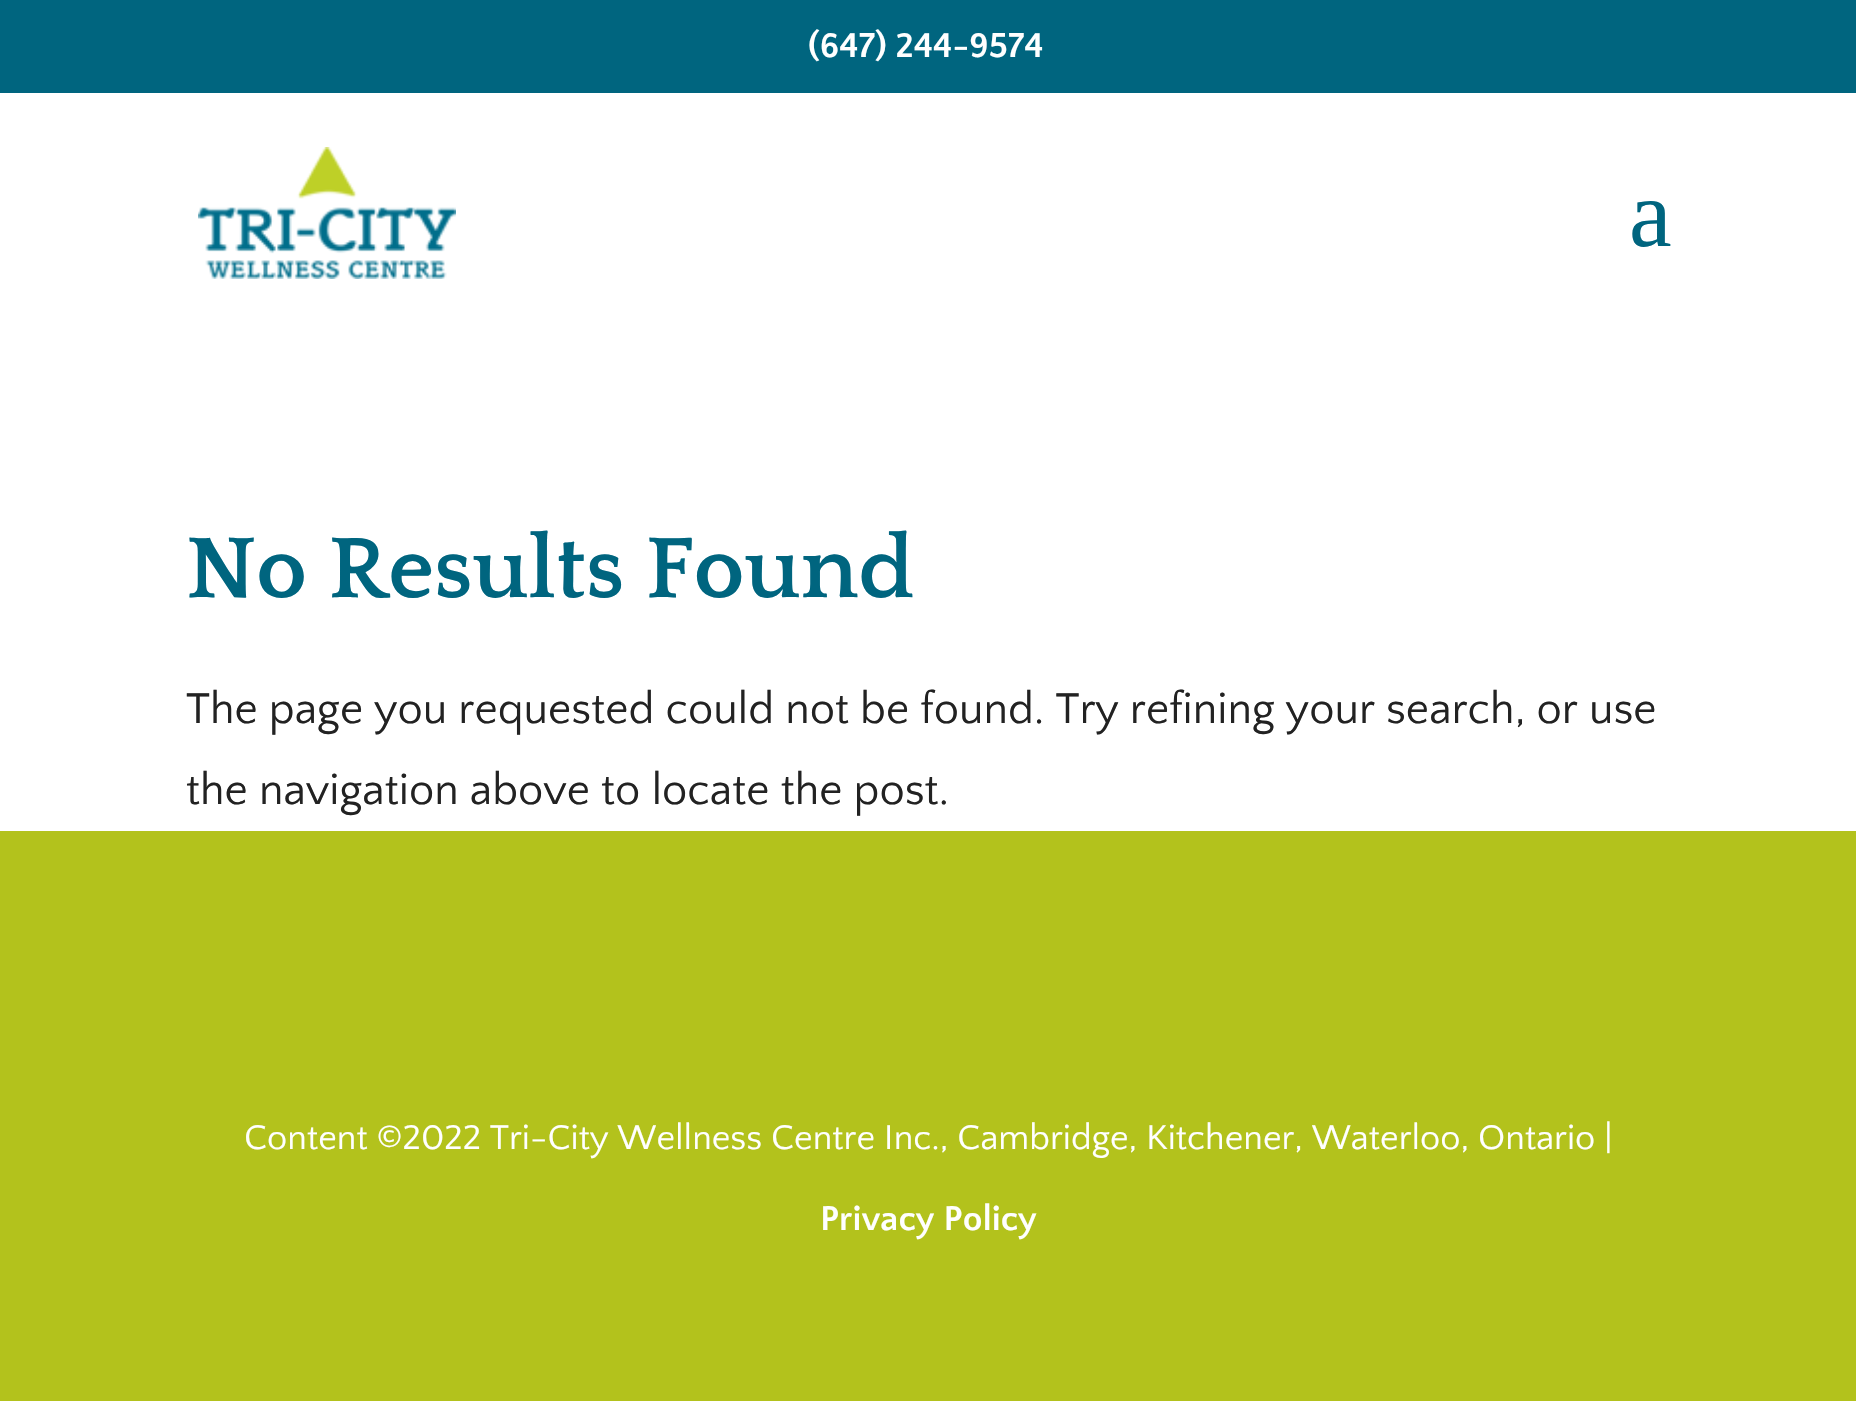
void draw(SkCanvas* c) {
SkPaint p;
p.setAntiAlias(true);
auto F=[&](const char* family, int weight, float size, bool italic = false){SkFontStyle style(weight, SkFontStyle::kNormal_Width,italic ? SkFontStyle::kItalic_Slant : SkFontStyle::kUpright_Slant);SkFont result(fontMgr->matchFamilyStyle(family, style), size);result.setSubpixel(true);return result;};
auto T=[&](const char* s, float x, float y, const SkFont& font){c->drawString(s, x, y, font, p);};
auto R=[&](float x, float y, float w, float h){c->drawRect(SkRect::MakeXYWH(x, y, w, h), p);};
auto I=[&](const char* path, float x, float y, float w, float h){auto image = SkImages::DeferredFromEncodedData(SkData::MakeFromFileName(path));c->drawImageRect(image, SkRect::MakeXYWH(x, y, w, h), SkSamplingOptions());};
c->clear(0xffb3c21c);
p.setColor(0xff00657f);
R(0,0,1856,93);
auto f1 = F("Quattrocento Sans",700,36);
p.setColor(0xffffffff);
T("(647) 244-9574",808,57,f1);
R(0,93,1856,738);
I("1.png",198,147,258,132);
auto f2 = F("Liberation Serif",400,96);
p.setColor(0xff00657f);
T("a",1629,246,f2);
auto f3 = F("Quattrocento",700,90);
T("No Results Found",186,597,f3);
auto f4 = F("Quattrocento Sans",400,45);
p.setColor(0xff222222);
T("The page you requested could not be found. Try refining your search, or use",186,723,f4);
T("the navigation above to locate the post.",186,804,f4);
auto f5 = F("Quattrocento Sans",400,36);
p.setColor(0xffffffff);
T("Content ©2022 Tri-City Wellness Centre Inc., Cambridge, Kitchener, Waterloo, Ontario |",244,1149,f5);
T("Privacy Policy",820,1230,f1);
}
